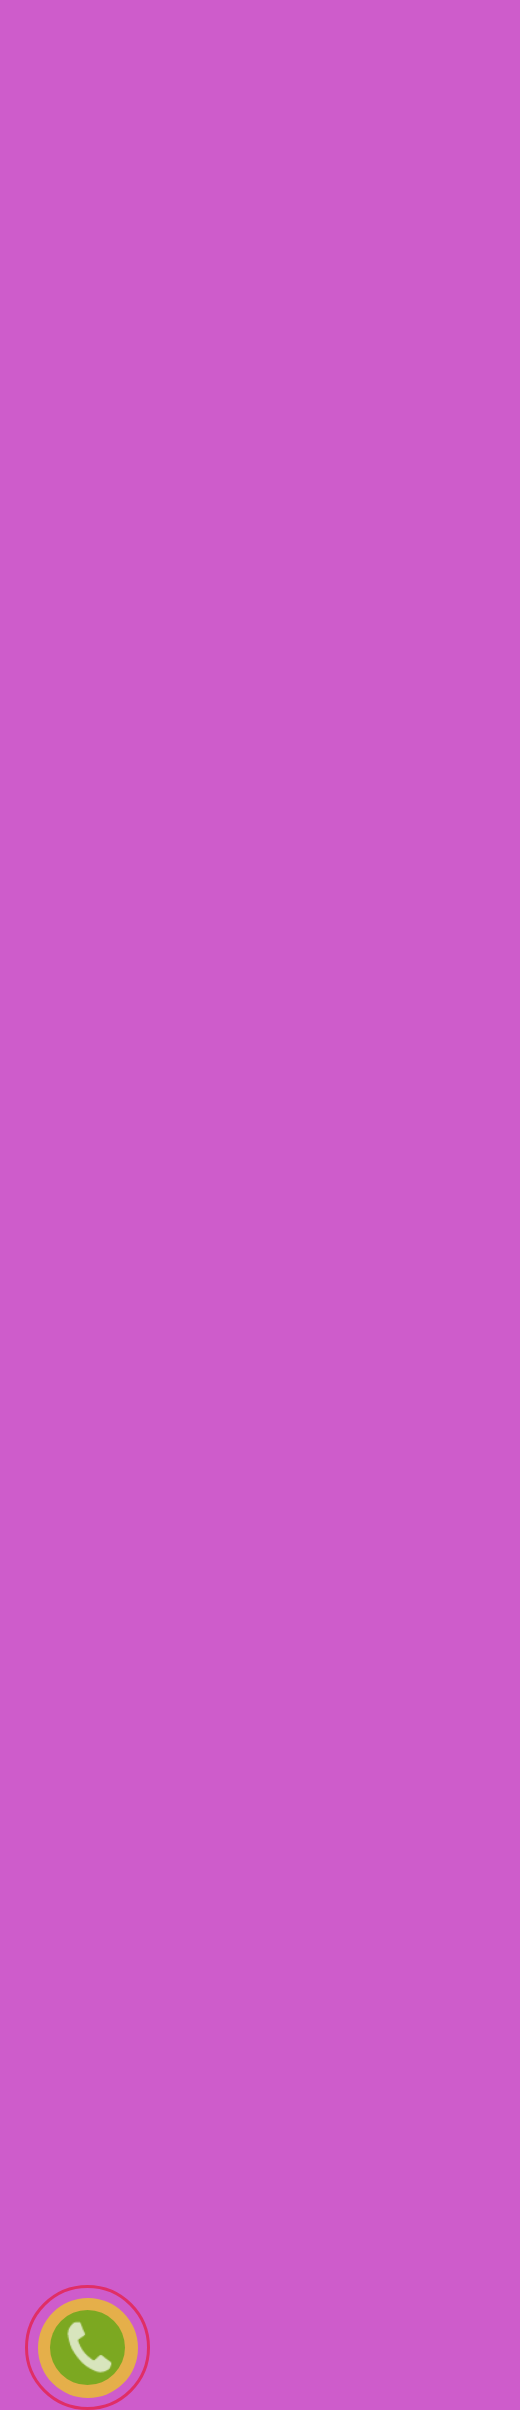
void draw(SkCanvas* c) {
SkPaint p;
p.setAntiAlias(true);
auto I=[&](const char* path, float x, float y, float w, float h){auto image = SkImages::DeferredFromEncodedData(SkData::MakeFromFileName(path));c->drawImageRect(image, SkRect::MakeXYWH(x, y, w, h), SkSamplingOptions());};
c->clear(0xffce5ccb);
p.setStroke(true);
p.setStrokeWidth(3);
p.setColor(0xffe02e66);
c->drawCircle(87.5,2347.5,61,p);
p.setStroke(false);
p.setColor(0xffe5af4a);
c->drawCircle(88,2348,50,p);
p.setColor(0xff7ca821);
c->drawCircle(87.5,2347.5,37.5,p);
I("1.png",67,2321,45,52);
}
